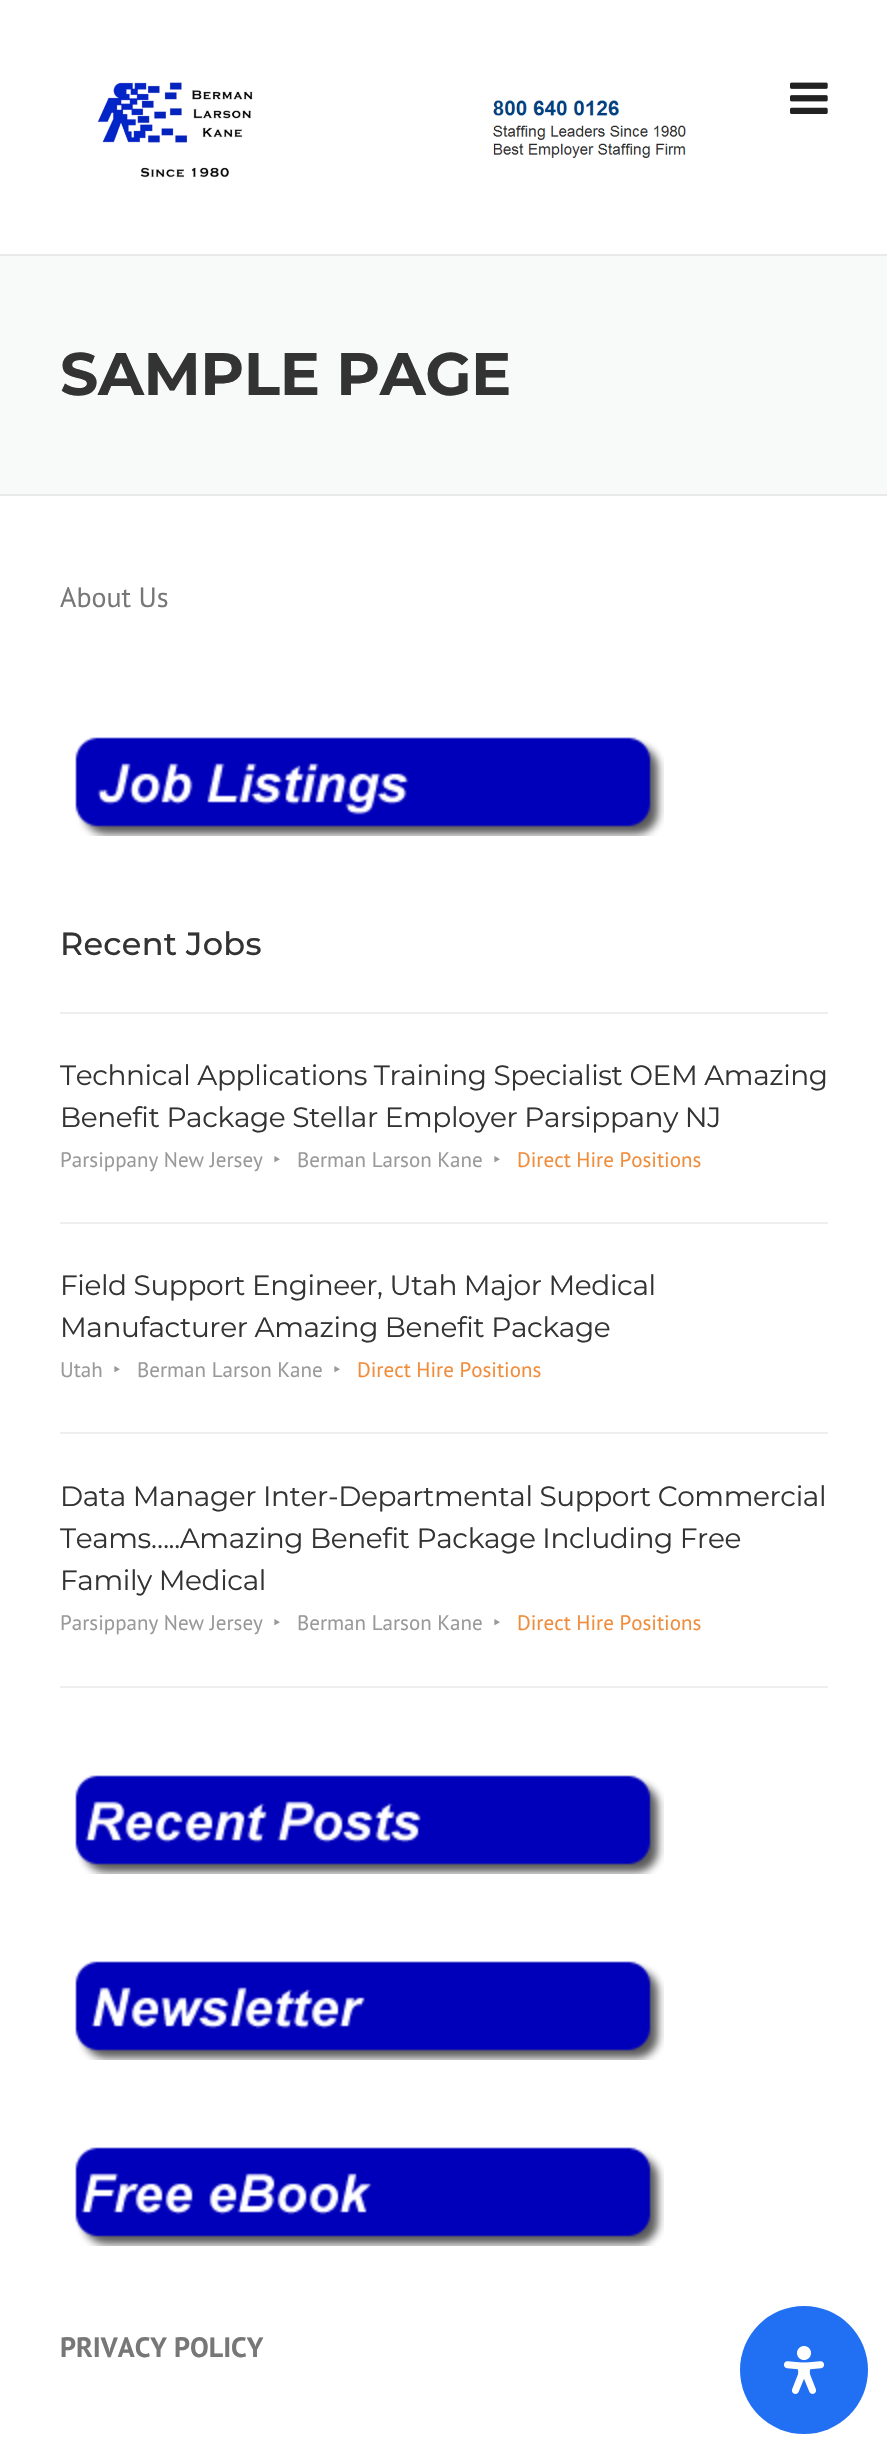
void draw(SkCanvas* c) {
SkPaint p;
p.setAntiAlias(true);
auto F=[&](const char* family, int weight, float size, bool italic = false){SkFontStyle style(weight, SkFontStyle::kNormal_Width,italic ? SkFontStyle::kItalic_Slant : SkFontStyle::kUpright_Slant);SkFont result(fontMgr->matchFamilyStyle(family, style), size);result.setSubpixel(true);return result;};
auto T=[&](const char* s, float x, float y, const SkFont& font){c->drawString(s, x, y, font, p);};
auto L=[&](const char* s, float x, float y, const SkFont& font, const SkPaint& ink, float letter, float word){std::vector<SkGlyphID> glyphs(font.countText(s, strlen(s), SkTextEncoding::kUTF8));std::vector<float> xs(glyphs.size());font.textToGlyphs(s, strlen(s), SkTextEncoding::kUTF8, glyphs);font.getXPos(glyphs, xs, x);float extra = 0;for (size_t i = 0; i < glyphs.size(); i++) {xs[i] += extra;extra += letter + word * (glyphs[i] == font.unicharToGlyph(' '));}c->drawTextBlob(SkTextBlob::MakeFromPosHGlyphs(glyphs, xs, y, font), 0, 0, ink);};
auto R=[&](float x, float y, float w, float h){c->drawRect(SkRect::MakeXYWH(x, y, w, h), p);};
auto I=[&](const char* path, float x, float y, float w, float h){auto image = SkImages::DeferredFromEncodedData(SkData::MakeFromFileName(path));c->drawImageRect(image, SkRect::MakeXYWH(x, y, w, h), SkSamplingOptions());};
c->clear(0xffffffff);
I("1.png",97,82,589,96);
I("2.png",790,82,38,32);
p.setColor(0xfff8f9f9);
R(0,256,887,238);
p.setColor(0xffe9e9e9);
R(0,254,887,2);
R(0,494,887,2);
auto f1 = F("Montserrat",700,60);
p.setColor(0xff333333);
L("SAMPLE PAGE",60,395,f1,p,-.4,0);
auto f2 = F("PT Sans",400,28);
p.setColor(0xff777777);
T("About Us",60,607,f2);
I("3.png",75,737,589,99);
auto f3 = F("Montserrat",500,32);
p.setColor(0xff333333);
L("Recent Jobs",60,955,f3,p,.25,0);
p.setColor(0xffeeeeee);
R(60,1012,768,2);
R(60,1222,768,2);
auto f4 = F("Montserrat",400,28);
p.setColor(0xff333333);
L("Technical Applications Training Specialist OEM Amazing",60,1085,f4,p,-.4,0);
L("Benefit Package Stellar Employer Parsippany NJ",60,1127,f4,p,-.4,0);
auto f5 = F("PT Sans",400,21);
p.setColor(0xff999999);
T("Parsippany New Jersey",60,1167,f5);
auto f6 = F("Noto Sans",400,21);
T("‣",273,1167,f6);
T("Berman Larson Kane",297,1167,f5);
T("‣",493,1167,f6);
p.setColor(0xfff08d3c);
T("Direct Hire Positions",517,1167,f5);
p.setColor(0xffeeeeee);
R(60,1432,768,2);
p.setColor(0xff333333);
L("Field Support Engineer, Utah Major Medical",60,1295,f4,p,-.4,0);
L("Manufacturer Amazing Benefit Package",60,1337,f4,p,-.4,0);
p.setColor(0xff999999);
T("Utah",60,1377,f5);
T("‣",113,1377,f6);
T("Berman Larson Kane",137,1377,f5);
T("‣",333,1377,f6);
p.setColor(0xfff08d3c);
T("Direct Hire Positions",357,1377,f5);
p.setColor(0xffeeeeee);
R(60,1686,768,2);
p.setColor(0xff333333);
L("Data Manager Inter-Departmental Support Commercial",60,1506,f4,p,-.4,0);
L("Teams…..Amazing Benefit Package Including Free",60,1548,f4,p,-.4,0);
L("Family Medical",60,1590,f4,p,-.4,0);
p.setColor(0xff999999);
T("Parsippany New Jersey",60,1630,f5);
T("‣",273,1630,f6);
T("Berman Larson Kane",297,1630,f5);
T("‣",493,1630,f6);
p.setColor(0xfff08d3c);
T("Direct Hire Positions",517,1630,f5);
I("4.png",75,1775,589,99);
I("5.png",75,1961,589,99);
I("6.png",75,2147,589,99);
auto f7 = F("PT Sans",700,28);
p.setColor(0xff777777);
T("PRIVACY POLICY",60,2357,f7);
p.setColor(0xff216ff3);
c->drawCircle(804,2370,64,p);
I("7.png",783,2346,42,48);
}
